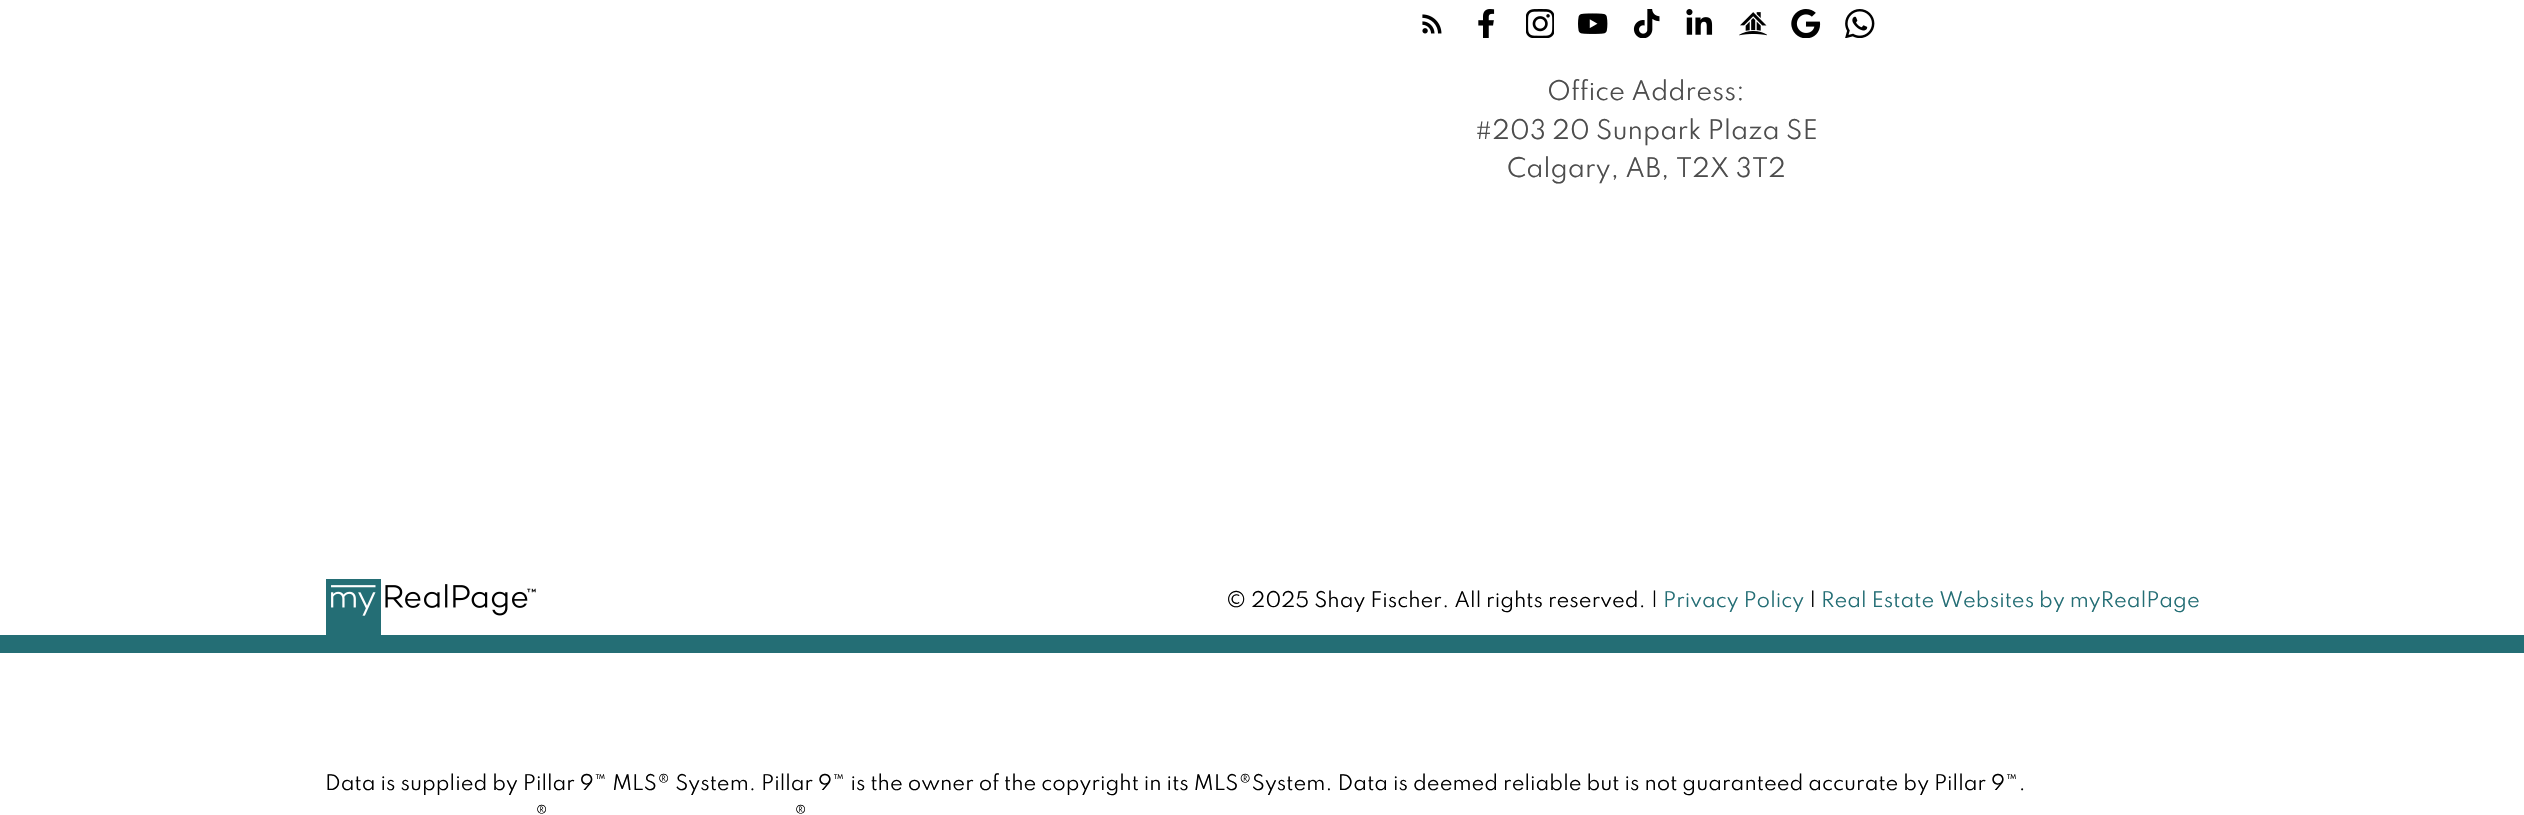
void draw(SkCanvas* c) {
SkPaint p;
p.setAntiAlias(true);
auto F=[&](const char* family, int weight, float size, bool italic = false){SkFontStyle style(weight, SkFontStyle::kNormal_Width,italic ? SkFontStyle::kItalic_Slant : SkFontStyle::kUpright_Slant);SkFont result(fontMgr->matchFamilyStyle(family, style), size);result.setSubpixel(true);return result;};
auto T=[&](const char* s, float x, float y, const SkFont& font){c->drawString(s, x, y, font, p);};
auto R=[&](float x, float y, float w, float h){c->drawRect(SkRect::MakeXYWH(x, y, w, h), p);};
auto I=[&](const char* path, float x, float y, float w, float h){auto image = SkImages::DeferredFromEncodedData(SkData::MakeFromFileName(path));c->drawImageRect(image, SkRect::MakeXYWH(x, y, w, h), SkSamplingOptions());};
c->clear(0xffffffff);
I("1.png",1422,14,20,20);
I("2.png",1478,9,17,29);
I("3.png",1526,9,28,29);
I("4.png",1578,13,30,21);
I("5.png",1633,9,27,29);
I("6.png",1686,9,27,26);
I("7.png",1739,12,28,24);
I("8.png",1791,9,30,29);
I("9.png",1845,9,30,29);
auto f1 = F("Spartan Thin",400,24);
p.setColor(0xff4d4d4d);
T("Office Address:",1547,100,f1);
T("#203 20 Sunpark Plaza SE",1475,139,f1);
T("Calgary, AB, T2X 3T2",1507,177,f1);
I("10.png",326,579,210,56);
auto f2 = F("Spartan Thin",400,19.2);
p.setColor(0xff000000);
T("© 2025 Shay Fischer. All rights reserved. |",1226,607,f2);
p.setColor(0xff246e75);
T("Privacy Policy",1663,607,f2);
p.setColor(0xff000000);
T("|",1809,607,f2);
p.setColor(0xff246e75);
T("Real Estate Websites by myRealPage",1821,607,f2);
R(0,635,2524,18);
p.setColor(0xff000000);
T("Data is supplied by Pillar 9™ MLS® System. Pillar 9™ is the owner of the copyright in its MLS®System. Data is deemed reliable but is not guaranteed accurate by Pillar 9™.",325,790,f2);
T("®",535,821,f2);
T("®",794,821,f2);
}
